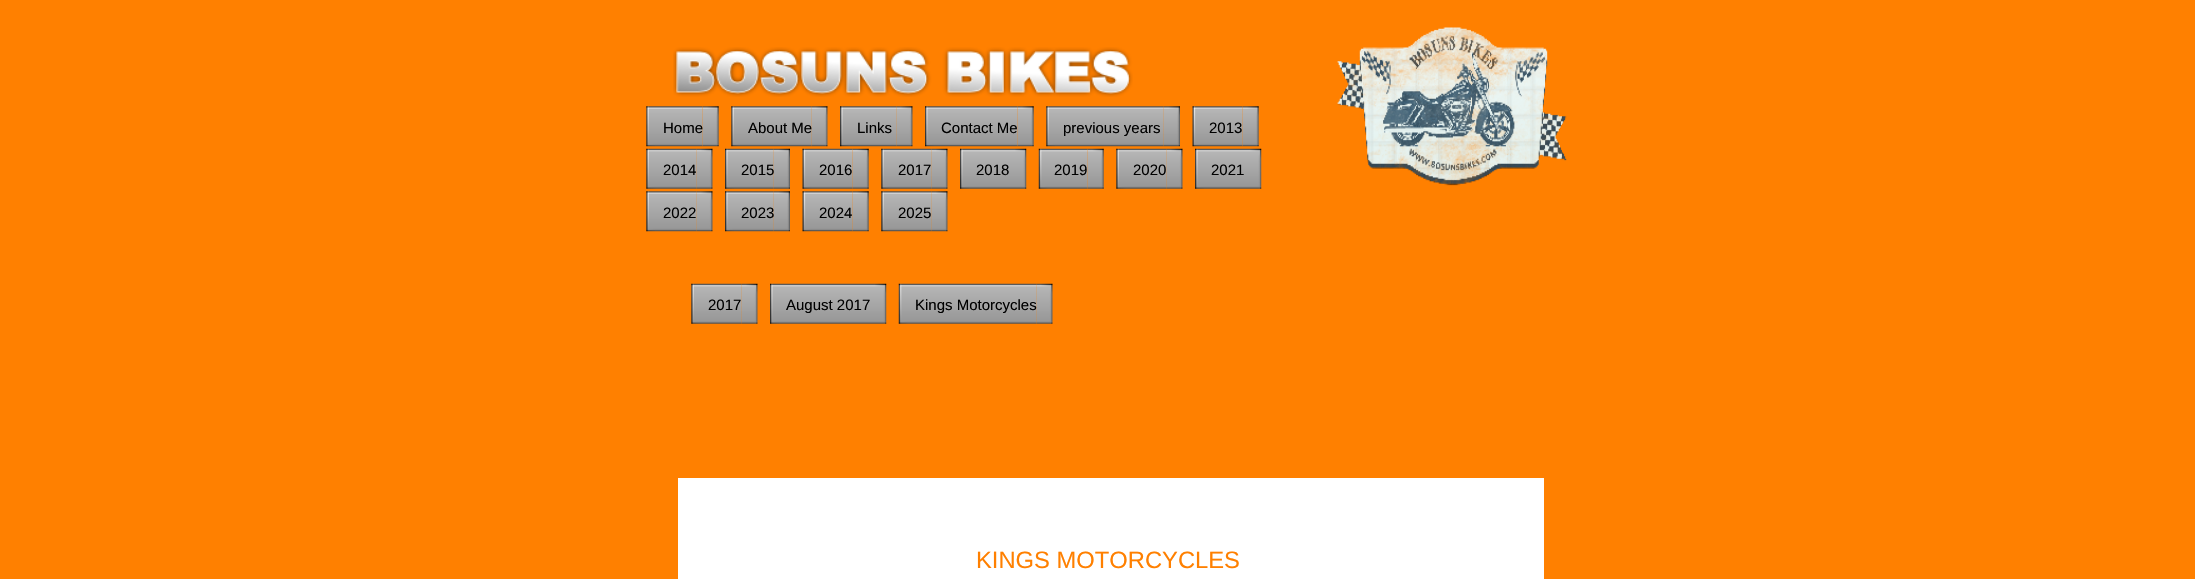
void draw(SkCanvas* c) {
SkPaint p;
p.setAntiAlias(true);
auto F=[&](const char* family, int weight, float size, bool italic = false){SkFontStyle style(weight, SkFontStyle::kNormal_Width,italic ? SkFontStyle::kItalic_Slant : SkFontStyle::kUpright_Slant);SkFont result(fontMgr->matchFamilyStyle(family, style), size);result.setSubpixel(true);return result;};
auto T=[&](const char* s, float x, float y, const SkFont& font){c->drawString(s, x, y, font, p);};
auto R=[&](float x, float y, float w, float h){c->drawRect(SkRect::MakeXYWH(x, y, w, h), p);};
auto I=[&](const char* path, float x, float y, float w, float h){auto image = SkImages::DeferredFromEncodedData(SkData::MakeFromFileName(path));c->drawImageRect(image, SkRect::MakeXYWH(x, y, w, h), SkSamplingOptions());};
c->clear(0xffff8000);
I("1.png",673,47,460,50);
I("2.png",1337,27,230,159);
I("3.png",702,106,17,41);
I("4.png",646,106,57,41);
auto f1 = F("Liberation Sans",400,15);
p.setColor(0xff000000);
T("Home",663,133,f1);
I("5.png",811,106,17,41);
I("6.png",731,106,81,41);
T("About Me",748,133,f1);
I("5.png",896,106,17,41);
I("7.png",840,106,57,41);
T("Links",857,133,f1);
I("3.png",1017,106,17,41);
I("8.png",925,106,93,41);
T("Contact Me",941,133,f1);
I("9.png",1163,106,17,41);
I("10.png",1046,106,118,41);
T("previous years",1063,133,f1);
I("3.png",1242,106,17,41);
I("11.png",1192,106,51,41);
T("2013",1209,133,f1);
I("12.png",696,148,17,41);
I("13.png",646,148,51,41);
T("2014",663,175,f1);
I("14.png",773,148,17,41);
I("15.png",725,148,49,41);
T("2015",741,175,f1);
I("16.png",852,148,17,41);
I("17.png",802,148,51,41);
T("2016",819,175,f1);
I("12.png",931,148,17,41);
I("13.png",881,148,51,41);
T("2017",898,175,f1);
I("18.png",1010,148,17,41);
I("19.png",960,148,50,41);
T("2018",976,175,f1);
I("20.png",1087,148,17,41);
I("21.png",1038,148,50,41);
T("2019",1054,175,f1);
I("12.png",1166,148,17,41);
I("13.png",1116,148,51,41);
T("2020",1133,175,f1);
I("18.png",1245,148,17,41);
I("19.png",1195,148,50,41);
T("2021",1211,175,f1);
I("5.png",696,191,17,41);
I("22.png",646,191,51,41);
T("2022",663,218,f1);
I("9.png",773,191,17,41);
I("23.png",725,191,49,41);
T("2023",741,218,f1);
I("3.png",852,191,17,41);
I("11.png",802,191,51,41);
T("2024",819,218,f1);
I("5.png",931,191,17,41);
I("22.png",881,191,51,41);
T("2025",898,218,f1);
I("24.png",741,283,17,41);
I("25.png",691,283,51,41);
T("2017",708,310,f1);
I("26.png",870,283,17,41);
I("27.png",770,283,100,41);
T("August 2017",786,310,f1);
I("24.png",1036,283,17,41);
I("28.png",898,283,139,41);
T("Kings Motorcycles",915,310,f1);
p.setColor(0xffffffff);
R(678,478,866,101);
auto f2 = F("Liberation Sans",400,23.75);
p.setColor(0xffff8000);
T("KINGS MOTORCYCLES",976,568,f2);
}
